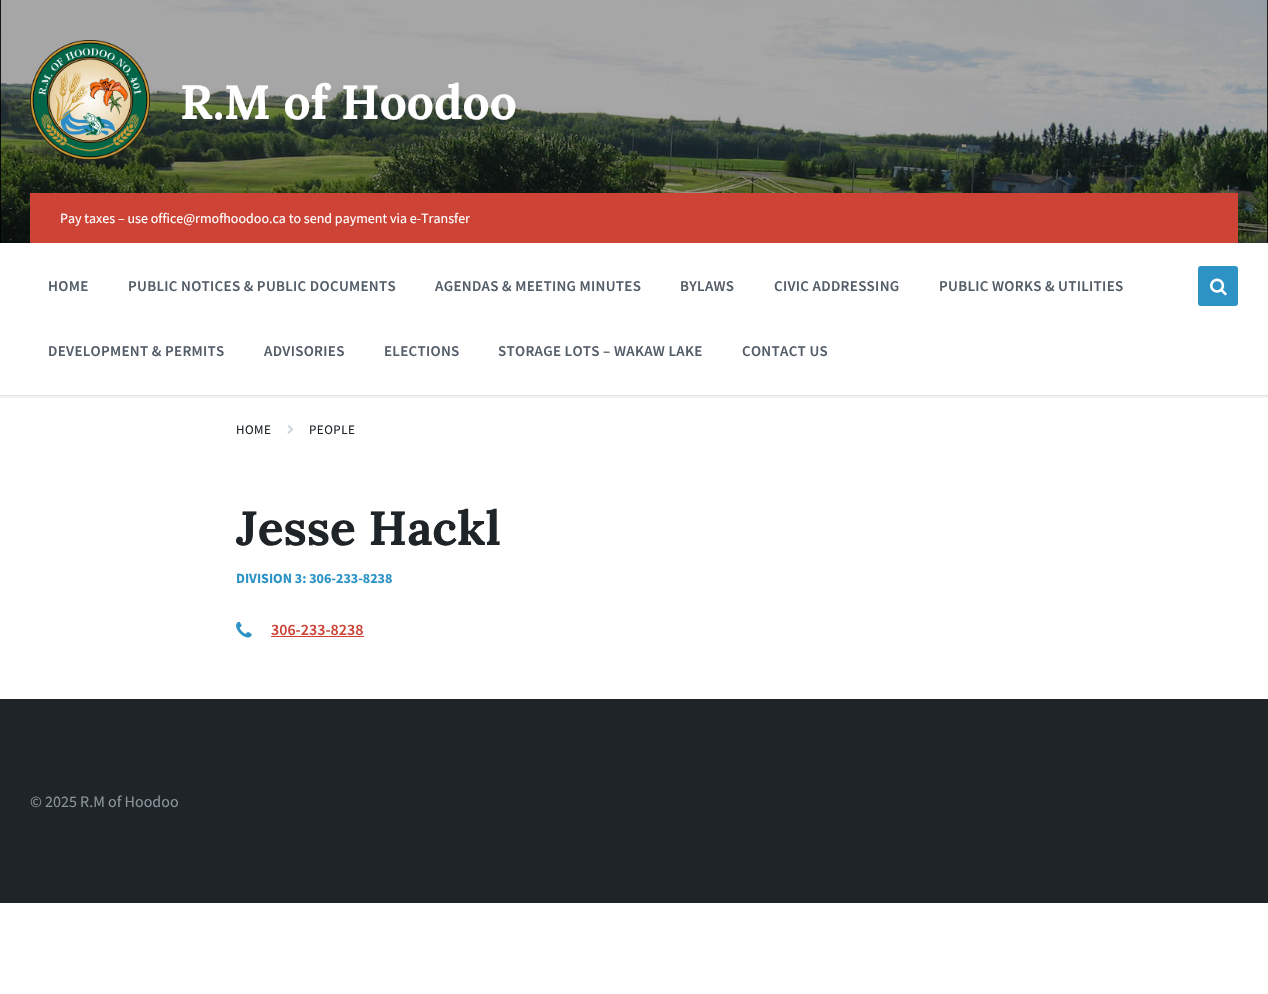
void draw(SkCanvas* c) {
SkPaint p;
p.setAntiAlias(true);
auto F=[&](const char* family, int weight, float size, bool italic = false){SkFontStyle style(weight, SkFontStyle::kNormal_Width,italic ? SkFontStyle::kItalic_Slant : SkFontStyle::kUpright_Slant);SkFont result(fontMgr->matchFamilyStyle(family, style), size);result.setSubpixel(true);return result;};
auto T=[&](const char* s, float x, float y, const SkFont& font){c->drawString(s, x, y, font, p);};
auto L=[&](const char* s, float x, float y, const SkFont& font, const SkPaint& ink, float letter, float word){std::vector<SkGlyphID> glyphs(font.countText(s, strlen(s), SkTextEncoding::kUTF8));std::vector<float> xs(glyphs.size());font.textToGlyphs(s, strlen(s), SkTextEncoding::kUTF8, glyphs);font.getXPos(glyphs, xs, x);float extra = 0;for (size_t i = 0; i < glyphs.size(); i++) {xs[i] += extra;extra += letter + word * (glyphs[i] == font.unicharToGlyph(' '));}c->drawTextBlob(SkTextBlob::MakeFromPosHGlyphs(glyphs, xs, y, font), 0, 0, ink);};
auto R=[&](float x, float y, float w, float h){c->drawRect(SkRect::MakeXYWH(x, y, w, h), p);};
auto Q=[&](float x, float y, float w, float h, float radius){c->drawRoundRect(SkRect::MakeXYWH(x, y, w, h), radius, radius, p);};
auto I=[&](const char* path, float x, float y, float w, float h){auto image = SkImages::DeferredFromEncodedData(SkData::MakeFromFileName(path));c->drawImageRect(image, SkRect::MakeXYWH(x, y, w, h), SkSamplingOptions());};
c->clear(0xffffffff);
p.setStroke(true);
p.setStrokeWidth(2);
p.setColor(0xfff2f2f2);
c->drawRect(SkRect::MakeXYWH(-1,242,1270,155),p);
I("1.png",0,0,1268,243);
I("2.png",30,40,120,120);
auto f1 = F("Lora",700,48);
p.setStroke(false);
p.setColor(0xffffffff);
T("R.M of Hoodoo",180,119,f1);
p.setColor(0xffcd4335);
R(30,193,1208,50);
auto f2 = F("Source Sans Pro",400,14);
p.setColor(0xffffffff);
T("Pay taxes – use office@rmofhoodoo.ca to send payment via e-Transfer",60,223,f2);
p.setColor(0xffe6e6e6);
R(0,395,1268,1);
auto f3 = F("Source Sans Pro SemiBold",600,15);
p.setColor(0xff545e69);
L("HOME",48,291,f3,p,.3,0);
L("PUBLIC NOTICES & PUBLIC DOCUMENTS",128,291,f3,p,.3,0);
L("AGENDAS & MEETING MINUTES",435,291,f3,p,.3,0);
L("BYLAWS",680,291,f3,p,.3,0);
L("CIVIC ADDRESSING",774,291,f3,p,.3,0);
L("PUBLIC WORKS & UTILITIES",939,291,f3,p,.3,0);
L("DEVELOPMENT & PERMITS",48,356,f3,p,.3,0);
L("ADVISORIES",264,356,f3,p,.3,0);
L("ELECTIONS",384,356,f3,p,.3,0);
L("STORAGE LOTS – WAKAW LAKE",498,356,f3,p,.3,0);
L("CONTACT US",742,356,f3,p,.3,0);
p.setColor(0xff2d93c5);
Q(1198,266,40,40,3);
I("3.png",1210,278,17,18);
auto f4 = F("Source Sans Pro",400,13);
p.setColor(0xff1e2427);
L("HOME",236,434,f4,p,.5,0);
I("4.png",287,425,7,9);
L("PEOPLE",309,434,f4,p,.5,0);
T("Jesse Hackl",236,545,f1);
auto f5 = F("Source Sans Pro",700,14);
p.setColor(0xff2d93c5);
T("DIVISION 3: 306-233-8238",236,583,f5);
I("5.png",236,621,16,17);
auto f6 = F("Source Sans Pro SemiBold",600,16);
p.setColor(0xffcd4335);
T("306-233-8238",271,635,f6);
R(271,636,93,1);
p.setColor(0xff1e2427);
R(0,699,1268,204);
auto f7 = F("Source Sans Pro",400,16);
p.setColor(0xff8a949b);
T("© 2025 R.M of Hoodoo",30,807,f7);
}
